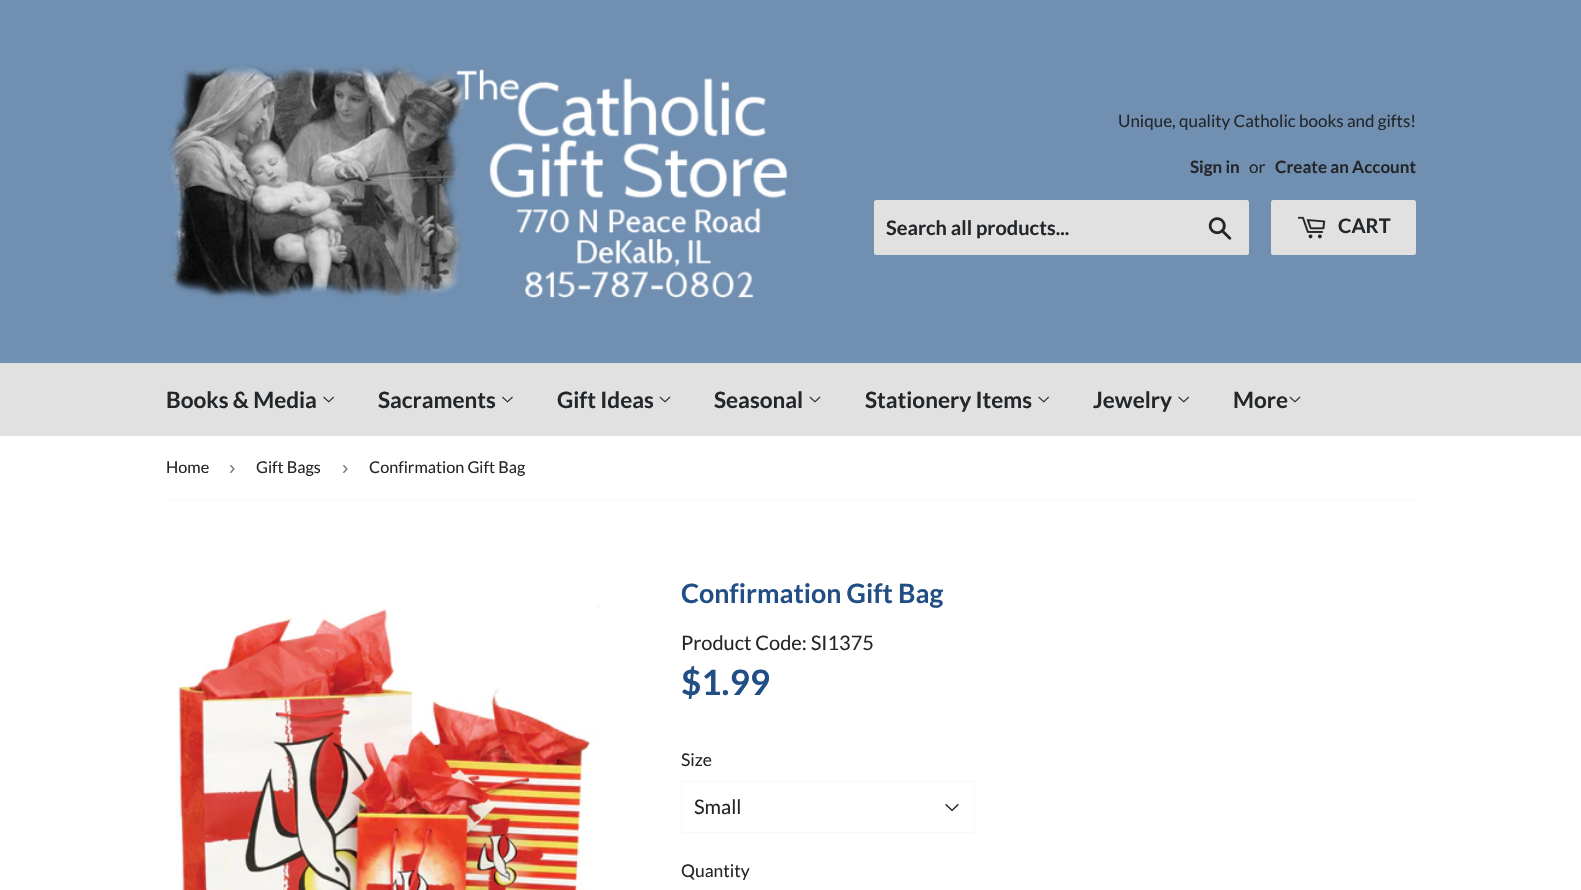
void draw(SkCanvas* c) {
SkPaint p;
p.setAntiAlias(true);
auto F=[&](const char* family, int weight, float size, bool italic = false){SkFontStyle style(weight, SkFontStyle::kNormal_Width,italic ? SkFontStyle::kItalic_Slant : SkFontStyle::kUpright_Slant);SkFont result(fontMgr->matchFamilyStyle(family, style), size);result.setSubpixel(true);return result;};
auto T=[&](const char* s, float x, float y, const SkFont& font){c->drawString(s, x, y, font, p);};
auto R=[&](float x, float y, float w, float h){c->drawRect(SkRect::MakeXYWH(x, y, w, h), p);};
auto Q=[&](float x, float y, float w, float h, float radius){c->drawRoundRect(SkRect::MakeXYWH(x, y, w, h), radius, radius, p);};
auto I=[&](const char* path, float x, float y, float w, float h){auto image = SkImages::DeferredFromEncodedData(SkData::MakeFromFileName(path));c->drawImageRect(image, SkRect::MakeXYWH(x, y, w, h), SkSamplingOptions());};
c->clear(0xffffffff);
p.setColor(0xff708fb1);
R(0,0,1581,363);
I("1.png",168,65,620,235);
auto f1 = F("Lato",400,17);
p.setColor(0xff24272a);
T("Unique, quality Catholic books and gifts!",1118,127,f1);
auto f2 = F("Lato",700,17);
T("Sign in",1190,173,f2);
T("or",1249,173,f1);
T("Create an Account",1275,173,f2);
p.setColor(0xffe1e1e1);
Q(874,200,375,55,2.5);
auto f3 = F("Lato",700,20);
p.setColor(0xff24272a);
T("Search all products...",886,235,f3);
I("2.png",1208,217,24,23);
p.setColor(0xffe1e1e1);
Q(1271,200,145,55,2.5);
I("3.png",1297,216,29,23);
p.setColor(0xff24272a);
T("CART",1338,233,f3);
p.setColor(0xffe1e1e1);
R(0,363,1581,73);
auto f4 = F("Lato",700,22.5);
p.setColor(0xff24272a);
T("Books & Media",166,408,f4);
I("4.png",323,396,11,7);
T("Sacraments",378,408,f4);
I("5.png",502,396,11,7);
T("Gift Ideas",557,408,f4);
I("6.png",659,396,12,7);
T("Seasonal",714,408,f4);
I("6.png",809,396,12,7);
T("Stationery Items",865,408,f4);
I("4.png",1038,396,11,7);
T("Jewelry",1093,408,f4);
I("4.png",1178,396,11,7);
T("More",1233,408,f4);
I("6.png",1289,396,12,7);
p.setColor(0xfff8f8f8);
R(166,500,1250,1);
auto f5 = F("Lato",400,16.25);
p.setColor(0xff24272a);
T("Home",166,473,f5);
auto f6 = F("Liberation Sans",400,19);
p.setColor(0xff767676);
T("›",229,474,f6);
p.setColor(0xff24272a);
T("Gift Bags",256,473,f5);
p.setColor(0xff767676);
T("›",342,474,f6);
p.setColor(0xff24272a);
T("Confirmation Gift Bag",369,473,f5);
I("7.png",176,606,424,284);
auto f7 = F("Lato",700,26.75);
p.setColor(0xff214f85);
T("Confirmation Gift Bag",681,603,f7);
auto f8 = F("Lato",400,20);
p.setColor(0xff24272a);
T("Product Code: SI1375",681,650,f8);
auto f9 = F("Lato",700,35);
p.setColor(0xff214f85);
T("$1.99",681,695,f9);
auto f10 = F("Lato",400,17.5);
p.setColor(0xff24272a);
T("Size",681,766,f10);
I("8.png",945,803,14,9);
p.setStroke(true);
p.setStrokeWidth(1);
p.setColor(0xfff8f8f8);
c->drawRoundRect(SkRect::MakeXYWH(681.5,781.5,293,51),2,2,p);
p.setStroke(false);
p.setColor(0xff24272a);
T("Small",694,814,f8);
T("Quantity",681,877,f10);
}
